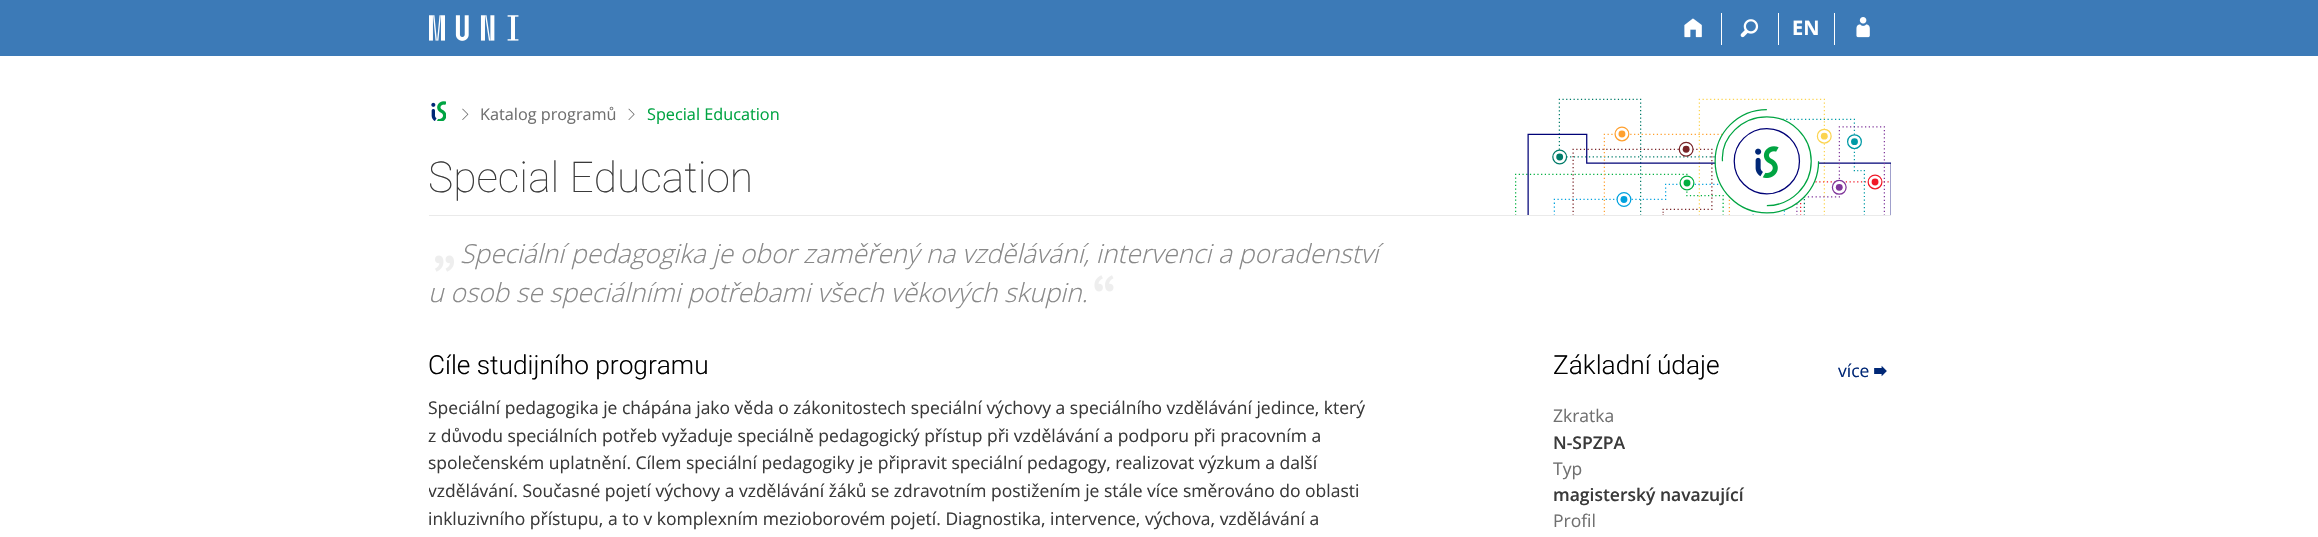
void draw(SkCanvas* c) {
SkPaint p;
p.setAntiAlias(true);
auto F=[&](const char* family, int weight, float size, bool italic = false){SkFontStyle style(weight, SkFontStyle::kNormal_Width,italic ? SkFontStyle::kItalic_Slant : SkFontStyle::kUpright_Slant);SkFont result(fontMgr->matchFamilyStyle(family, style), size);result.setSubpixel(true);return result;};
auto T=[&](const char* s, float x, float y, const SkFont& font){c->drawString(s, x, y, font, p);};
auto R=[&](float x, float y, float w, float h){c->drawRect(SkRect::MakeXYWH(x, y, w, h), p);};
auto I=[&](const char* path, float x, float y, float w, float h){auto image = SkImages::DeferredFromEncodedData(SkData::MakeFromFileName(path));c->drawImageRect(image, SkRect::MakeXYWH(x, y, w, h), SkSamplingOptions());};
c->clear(0xffffffff);
p.setColor(0xff3c7ab7);
R(0,0,2318,56);
I("1.png",429,15,90,26);
p.setColor(0xffffffff);
R(1721,13,1,32);
I("2.png",1684,18,18,20);
R(1778,13,1,32);
I("3.png",1740,19,19,19);
R(1834,13,1,32);
auto f1 = F("Open Sans",700,20);
T("EN",1792,35,f1);
I("4.png",1856,17,14,21);
I("5.png",431,101,15,20);
I("6.png",462,108,7,12);
auto f2 = F("Open Sans",400,16.25);
p.setColor(0xff707070);
T("Katalog programů",480,120,f2);
I("7.png",628,108,7,12);
p.setColor(0xff00a442);
T("Special Education",647,120,f2);
auto f3 = F("Roboto",100,42.5);
p.setColor(0xff3a3a3a);
T("Special Education",428,192,f3);
I("8.png",1515,98,376,117);
I("9.png",1755,146,24,32);
p.setColor(0xffeaeaea);
R(429,215,1462,1);
I("10.png",435,255,19,17);
auto f4 = F("Open Sans",300,26.25,true);
p.setColor(0xff888888);
T("Speciální pedagogika je obor zaměřený na vzdělávání, intervenci a poradenství",460,263,f4);
T("u osob se speciálními potřebami všech věkových skupin.",428,302,f4);
I("11.png",1094,275,20,17);
auto f5 = F("Roboto",300,26.25);
p.setColor(0xff000000);
T("Cíle studijního programu",428,374,f5);
auto f6 = F("Open Sans",400,17.5);
p.setColor(0xff3a3a3a);
T("Speciální pedagogika je chápána jako věda o zákonitostech speciální výchovy a speciálního vzdělávání jedince, který",428,414,f6);
T("z důvodu speciálních potřeb vyžaduje speciálně pedagogický přístup při vzdělávání a podporu při pracovním a",428,442,f6);
T("společenském uplatnění. Cílem speciální pedagogiky je připravit speciální pedagogy, realizovat výzkum a další",428,469,f6);
c->save();
c->clipRect(SkRect::MakeXYWH(429,348,962,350));
T("vzdělávání. Současné pojetí výchovy a vzdělávání žáků se zdravotním postižením je stále více směrováno do oblasti",428,497,f6);
c->restore();
T("inkluzivního přístupu, a to v komplexním mezioborovém pojetí. Diagnostika, intervence, výchova, vzdělávání a",428,525,f6);
p.setColor(0xff000000);
T("Základní údaje",1553,374,f5);
p.setColor(0xff002776);
T("více",1838,377,f6);
I("12.png",1874,365,13,12);
p.setColor(0xff707070);
T("Zkratka",1553,422,f6);
auto f7 = F("Open Sans",600,17.5);
p.setColor(0xff3a3a3a);
T("N-SPZPA",1553,449,f7);
p.setColor(0xff707070);
T("Typ",1553,475,f6);
p.setColor(0xff3a3a3a);
T("magisterský navazující",1553,501,f7);
p.setColor(0xff707070);
T("Profil",1553,527,f6);
}
